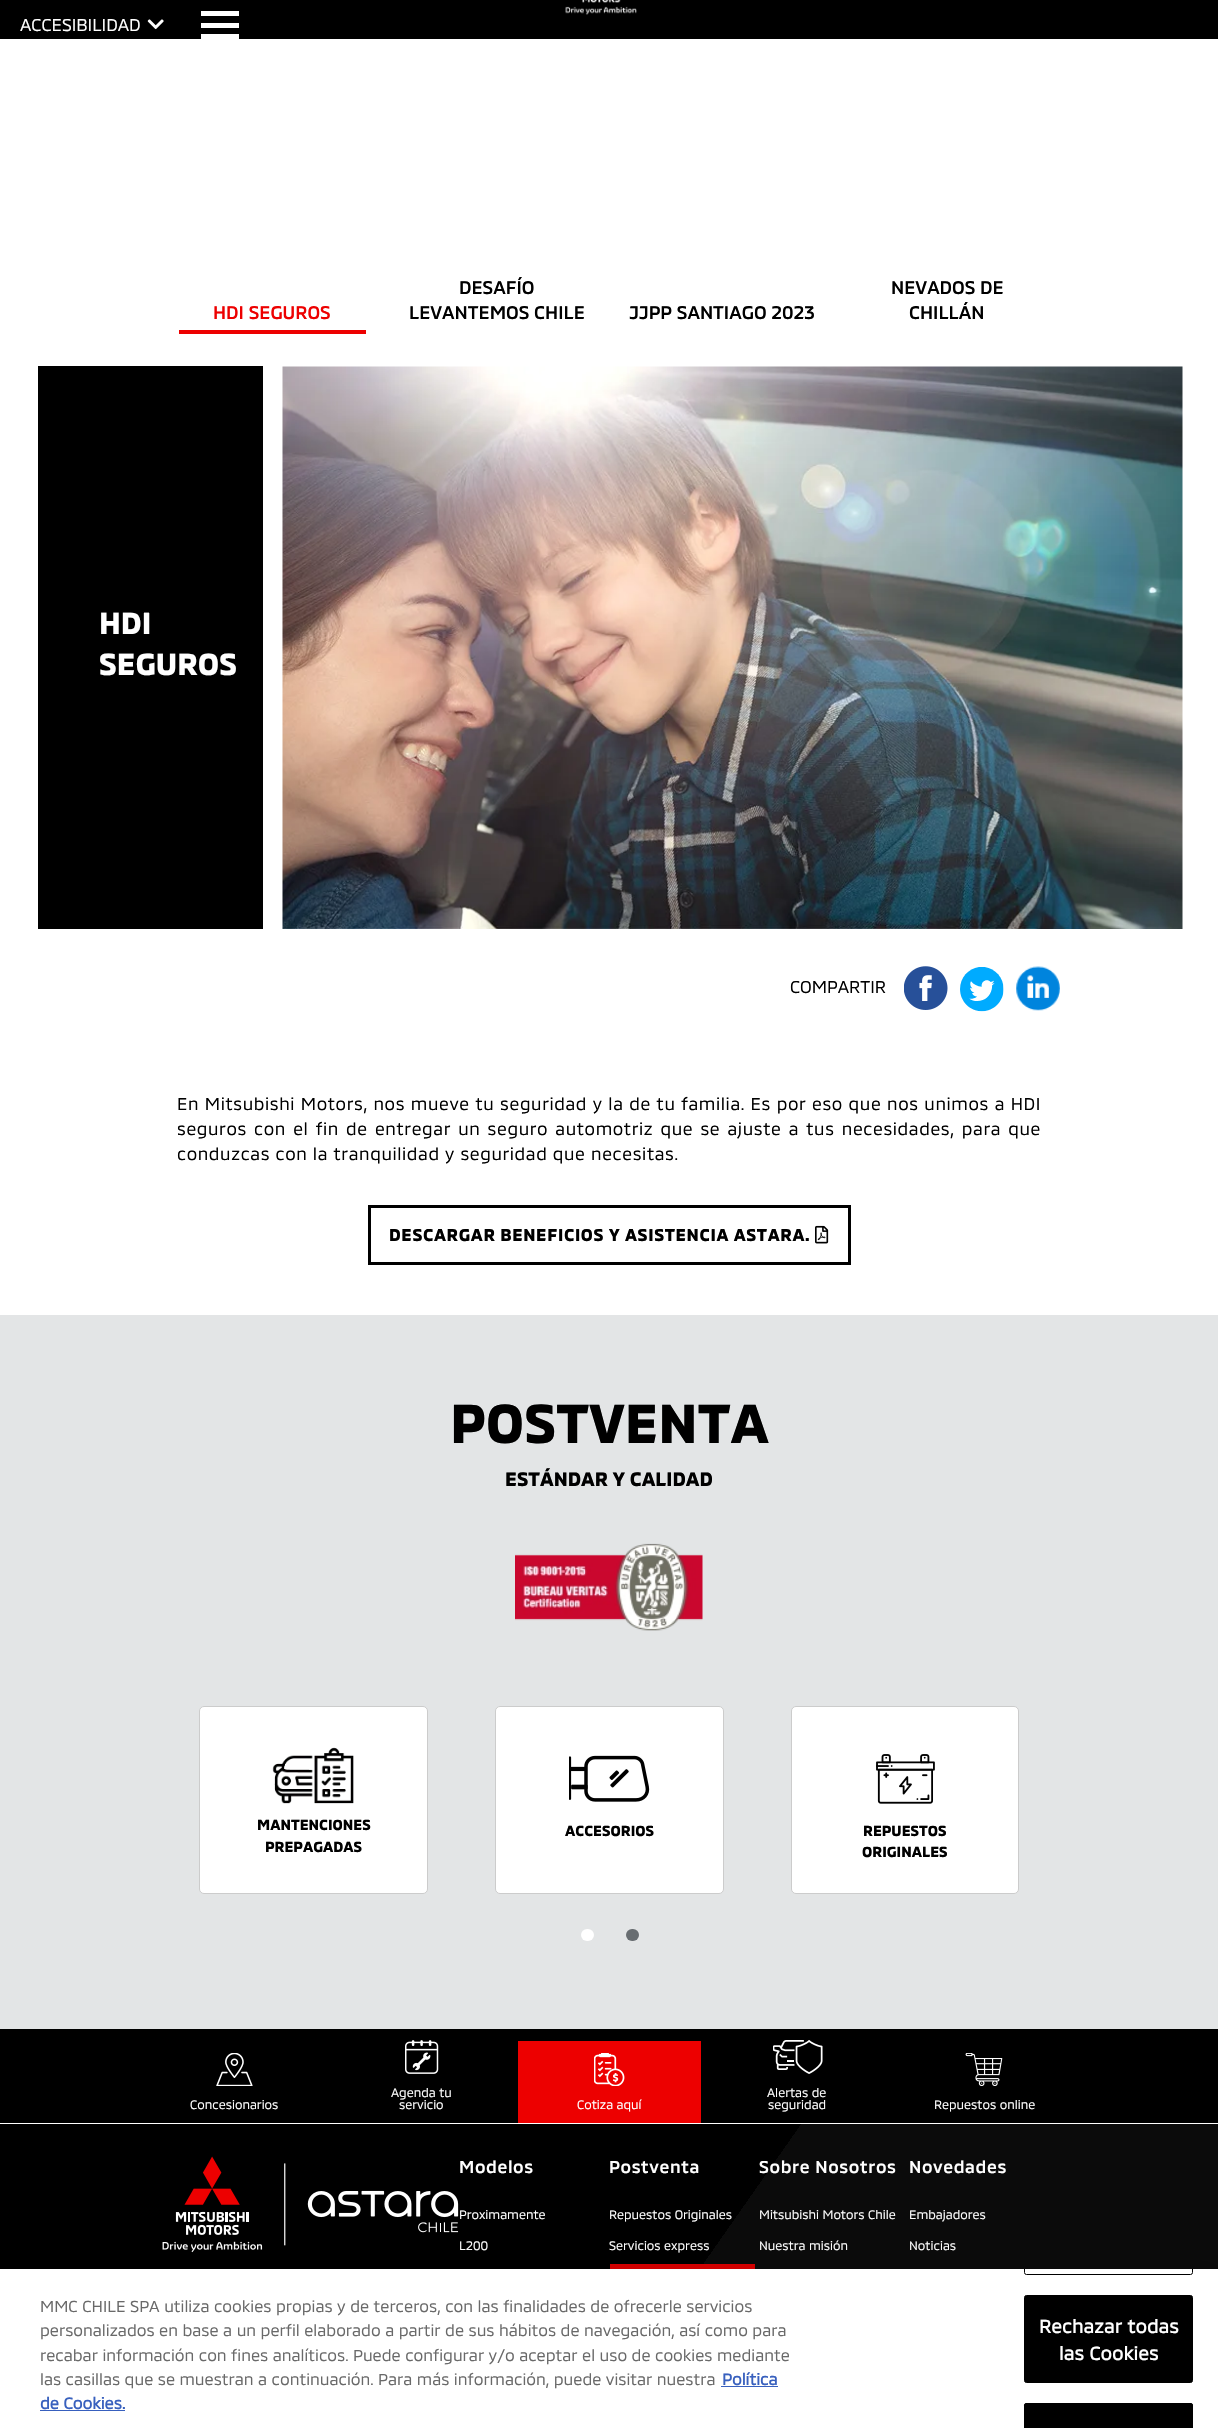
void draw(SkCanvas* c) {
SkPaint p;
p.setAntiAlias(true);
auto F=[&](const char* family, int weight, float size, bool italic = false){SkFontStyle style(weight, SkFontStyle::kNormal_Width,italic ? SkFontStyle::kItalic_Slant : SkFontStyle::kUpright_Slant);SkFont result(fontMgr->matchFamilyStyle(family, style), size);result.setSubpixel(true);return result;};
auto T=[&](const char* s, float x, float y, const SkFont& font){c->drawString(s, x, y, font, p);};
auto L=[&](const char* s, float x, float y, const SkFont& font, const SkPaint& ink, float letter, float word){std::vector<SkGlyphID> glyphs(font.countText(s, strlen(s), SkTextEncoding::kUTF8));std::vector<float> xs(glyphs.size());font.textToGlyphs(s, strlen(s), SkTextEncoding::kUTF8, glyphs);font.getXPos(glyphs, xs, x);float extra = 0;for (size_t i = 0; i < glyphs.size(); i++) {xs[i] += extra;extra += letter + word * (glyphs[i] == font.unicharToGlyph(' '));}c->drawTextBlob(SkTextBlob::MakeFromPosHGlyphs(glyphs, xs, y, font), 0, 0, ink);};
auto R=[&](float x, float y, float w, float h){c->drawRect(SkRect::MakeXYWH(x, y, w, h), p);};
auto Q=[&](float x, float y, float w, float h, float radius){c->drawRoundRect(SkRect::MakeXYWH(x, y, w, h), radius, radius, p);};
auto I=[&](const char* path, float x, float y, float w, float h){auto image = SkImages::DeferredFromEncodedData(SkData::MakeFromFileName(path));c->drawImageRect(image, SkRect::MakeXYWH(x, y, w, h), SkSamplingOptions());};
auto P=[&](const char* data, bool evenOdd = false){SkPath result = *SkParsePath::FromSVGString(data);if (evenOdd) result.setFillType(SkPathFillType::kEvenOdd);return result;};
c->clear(0xffffffff);
p.setColor(0xff000000);
R(0,0,1218,39);
I("1.png",565,0,72,15);
auto f1 = F("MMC",400,17.5);
p.setColor(0xffffffff);
T("ACCESIBILIDAD",20,31,f1);
I("2.png",147,19,17,11);
R(201,11,38,5);
R(201,23,38,5);
R(201,34,38,5);
p.setColor(0xffed0000);
R(179,330,187,4);
auto f2 = F("MMC",500,18.75);
T("HDI SEGUROS",213,319,f2);
p.setColor(0xff000000);
T("DESAFÍO",459,294,f2);
T("LEVANTEMOS CHILE",409,319,f2);
T("JJPP SANTIAGO 2023",629,319,f2);
T("NEVADOS DE",891,294,f2);
T("CHILLÁN",909,319,f2);
R(38,366,225,563);
auto f3 = F("MMC",700,31.25);
p.setColor(0xffffffff);
T("HDI",99,634,f3);
T("SEGUROS",99,675,f3);
I("3.png",282,366,901,563);
p.setColor(0xff000000);
T("COMPARTIR",790,993,f1);
I("4.png",904,966,44,44);
I("5.png",960,967,44,45);
I("6.png",1016,966,44,45);
L("En Mitsubishi Motors, nos mueve tu seguridad y la de tu familia. Es por eso que nos unimos a HDI",177,1110,f1,p,.62,.25);
L("seguros con el fin de entregar un seguro automotriz que se ajuste a tus necesidades, para que",177,1135,f1,p,.62,1.75);
L("conduzcas con la tranquilidad y seguridad que necesitas.",177,1160,f1,p,.62,0);
p.setStroke(true);
p.setStrokeWidth(3);
c->drawRect(SkRect::MakeXYWH(369.5,1206.5,480,57),p);
auto f4 = F("MMC",700,17.5);
p.setStroke(false);
L("DESCARGAR BENEFICIOS Y ASISTENCIA ASTARA.",389,1241,f4,p,.62,0);
I("7.png",815,1225,14,19);
p.setColor(0xffe3e5e6);
R(0,1315,1218,714);
auto f5 = F("MMC",700,56.25);
p.setColor(0xff000000);
T("POSTVENTA",450,1443,f5);
auto f6 = F("MMC",700,20);
T("ESTÁNDAR Y CALIDAD",505,1486,f6);
I("8.png",515,1543,188,88);
p.setColor(0xffffffff);
c->drawRoundRect(SkRect::MakeXYWH(199.5,1706.5,228,187),4.5,4.5,p);
p.setStroke(true);
p.setStrokeWidth(1);
p.setColor(0xffcccccc);
c->drawRoundRect(SkRect::MakeXYWH(199.5,1706.5,228,187),4.5,4.5,p);
I("9.png",272,1747,82,57);
auto f7 = F("MMC",700,15);
p.setStroke(false);
p.setColor(0xff000000);
T("MANTENCIONES",257,1830,f7);
T("PREPAGADAS",265,1852,f7);
p.setColor(0xffffffff);
c->drawRoundRect(SkRect::MakeXYWH(495.5,1706.5,228,187),4.5,4.5,p);
p.setStroke(true);
p.setColor(0xffcccccc);
c->drawRoundRect(SkRect::MakeXYWH(495.5,1706.5,228,187),4.5,4.5,p);
I("10.png",569,1755,81,47);
p.setStroke(false);
p.setColor(0xff000000);
T("ACCESORIOS",565,1836,f7);
p.setColor(0xffffffff);
c->drawRoundRect(SkRect::MakeXYWH(791.5,1706.5,227,187),4.5,4.5,p);
p.setStroke(true);
p.setColor(0xffcccccc);
c->drawRoundRect(SkRect::MakeXYWH(791.5,1706.5,227,187),4.5,4.5,p);
I("11.png",876,1754,59,50);
p.setStroke(false);
p.setColor(0xff000000);
T("REPUESTOS",863,1836,f7);
T("ORIGINALES",862,1857,f7);
p.setColor(0xffffffff);
Q(581,1929,13,12,6);
p.setColor(0xff686d71);
Q(626,1929,13,12,6);
{
const SkColor colors[] = {0xff000000,0xff000000,0xff0b0b0b,0xff0b0b0b};
const float stops[] = {0,.55,.55,1};
const SkPoint ends[] = {{80,1914}, {1139,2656}};
p.setShader(SkGradientShader::MakeLinear(ends, colors, stops, 4, SkTileMode::kClamp));
p.setAlpha(255);
}
R(0,2124,1218,145);
p.setShader(nullptr);
p.setColor(0xff000000);
R(0,2029,1218,94);
I("12.png",216,2053,37,33);
auto f8 = F("MMC",400,12.5);
p.setColor(0xffffffff);
T("Concesionarios",190,2109,f8);
I("13.png",405,2040,34,34);
T("Agenda tu",391,2097,f8);
T("servicio",399,2109,f8);
p.setColor(0xffed0000);
R(518,2041,183,82);
I("14.png",594,2053,31,33);
p.setColor(0xffffffff);
T("Cotiza aquí",577,2109,f8);
I("15.png",773,2040,50,34);
T("Alertas de",767,2097,f8);
T("seguridad",768,2109,f8);
I("16.png",965,2053,38,33);
T("Repuestos online",934,2109,f8);
I("17.png",162,2156,297,97);
auto f9 = F("MMC",500,17.5);
L("Modelos",459,2173,f9,p,.62,0);
T("Proximamente",459,2219,f8);
T("L200",459,2250,f8);
L("Postventa",609,2173,f9,p,.62,0);
T("Repuestos Originales",609,2219,f8);
T("Servicios express",609,2250,f8);
p.setColor(0xffe30000);
R(610,2264,145,5);
p.setColor(0xffffffff);
L("Sobre Nosotros",759,2173,f9,p,.62,0);
T("Mitsubishi Motors Chile",759,2219,f8);
T("Nuestra misión",759,2250,f8);
L("Novedades",909,2173,f9,p,.62,0);
T("Embajadores",909,2219,f8);
T("Noticias",909,2250,f8);
p.setColor(0x33000000);
p.setMaskFilter(SkMaskFilter::MakeBlur(kNormal_SkBlurStyle, 11));
c->drawRect(SkRect::MakeXYWH(0,2269,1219,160),p);
p.setMaskFilter(nullptr);
p.setColor(0xffffffff);
R(0,2269,1218,159);
auto f10 = F("MMC",400,16.25);
p.setColor(0xff696969);
T("MMC CHILE SPA utiliza cookies propias y de terceros, con las finalidades de ofrecerle servicios",40,2312,f10);
T("personalizados en base a un perfil elaborado a partir de sus hábitos de navegación, así como para",40,2336,f10);
T("recabar información con fines analíticos. Puede configurar y/o aceptar el uso de cookies mediante",40,2361,f10);
T("las casillas que se muestran a continuación. Para más información, puede visitar nuestra",40,2385,f10);
auto f11 = F("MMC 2",700,16.25);
p.setColor(0xff3860be);
T("Política",722,2385,f11);
R(721,2386,57,1);
T("de Cookies.",40,2409,f11);
R(40,2410,85,1);
c->save();
c->clipRect(SkRect::MakeXYWH(0,2269,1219,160));
p.setStroke(true);
p.setColor(0xff000000);
c->drawRoundRect(SkRect::MakeXYWH(1024.5,2188.5,168,86),2,2,p);
c->restore();
p.setStroke(false);
c->drawRoundRect(SkRect::MakeXYWH(1024.5,2295.5,168,87),2,2,p);
p.setStroke(true);
c->drawRoundRect(SkRect::MakeXYWH(1024.5,2295.5,168,87),2,2,p);
auto f12 = F("MMC 2",700,18.75);
p.setStroke(false);
p.setColor(0xffffffff);
L("Rechazar todas",1039,2333,f12,p,.25,0);
L("las Cookies",1059,2360,f12,p,.25,0);
p.setColor(0xff000000);
c->drawPath(P("M1026.5 2403h164c1.5 0 2.5 1 2.5 2.5v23.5h-169v-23.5c0-1.5 1-2.5 2.5-2.5z"),p);
p.setStroke(true);
c->drawRoundRect(SkRect::MakeXYWH(1024.5,2403.5,168,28),2,2,p);
}
